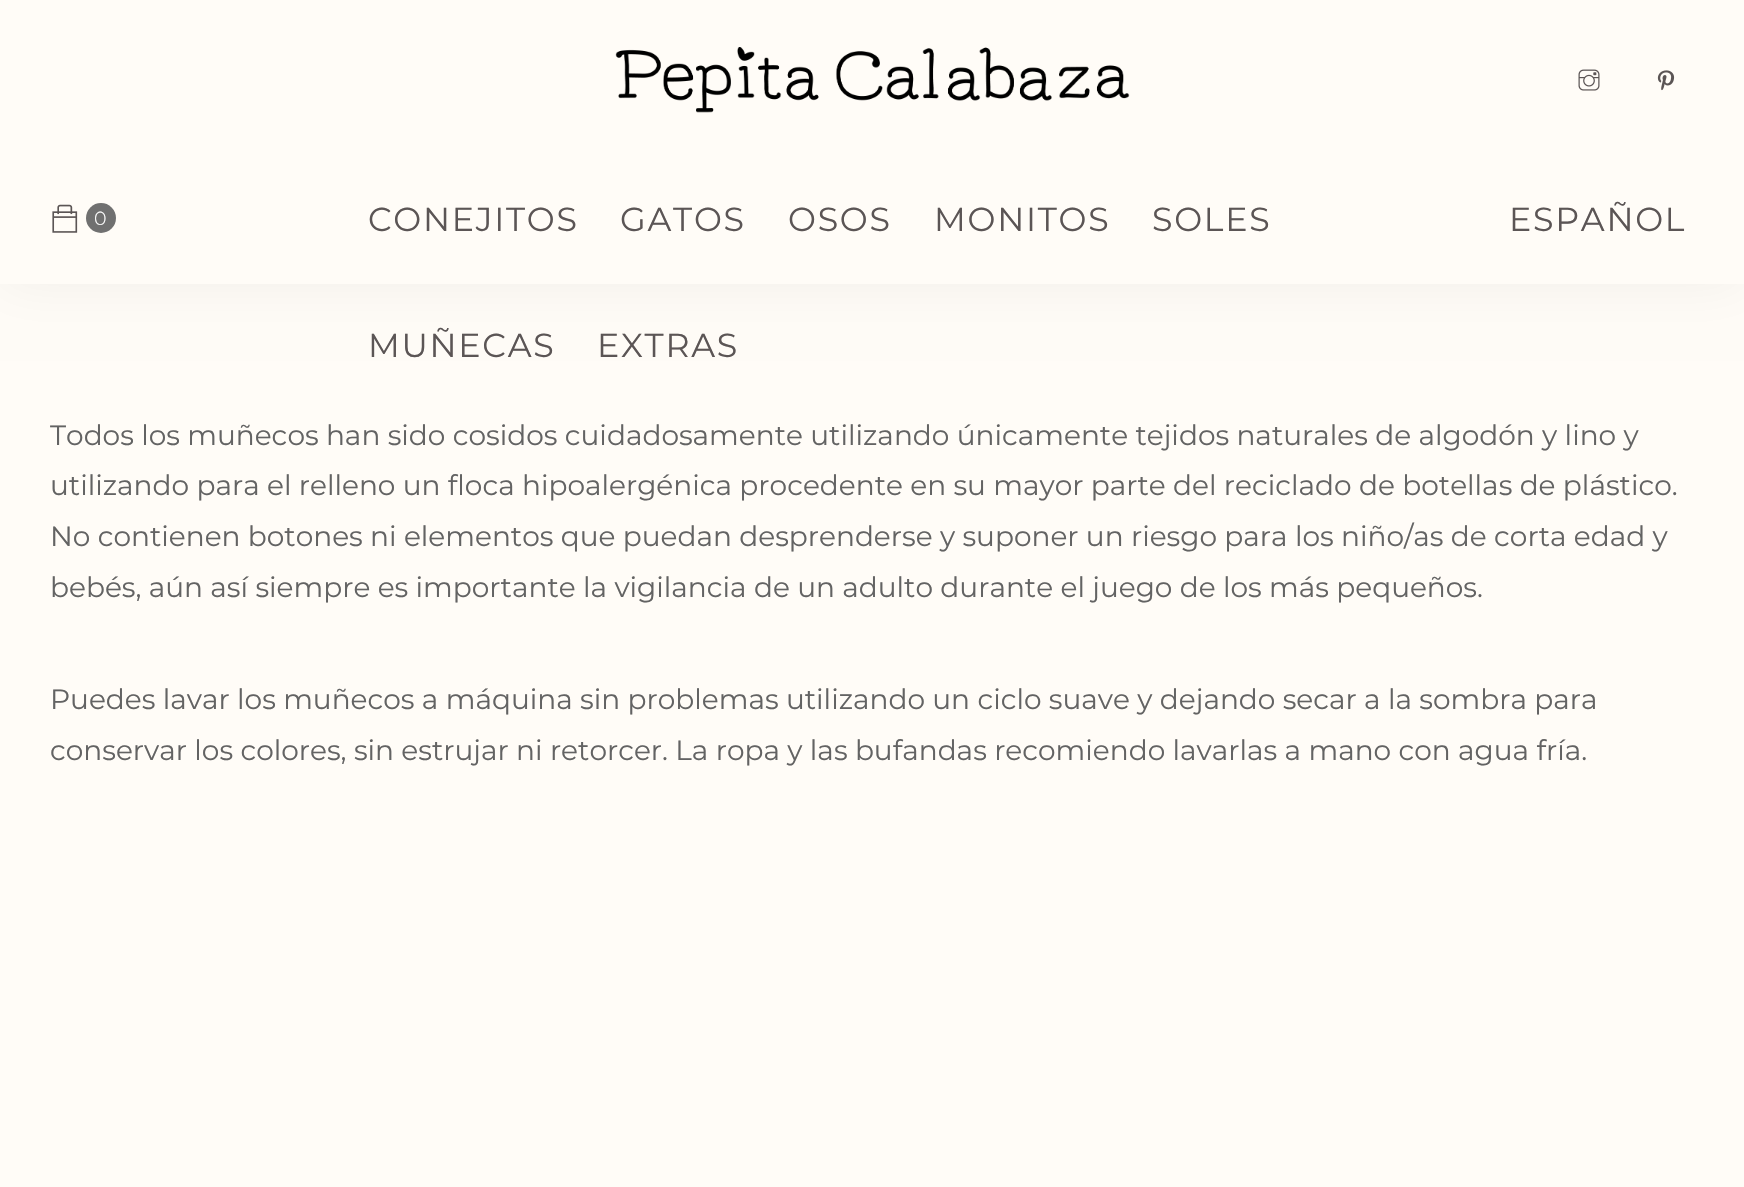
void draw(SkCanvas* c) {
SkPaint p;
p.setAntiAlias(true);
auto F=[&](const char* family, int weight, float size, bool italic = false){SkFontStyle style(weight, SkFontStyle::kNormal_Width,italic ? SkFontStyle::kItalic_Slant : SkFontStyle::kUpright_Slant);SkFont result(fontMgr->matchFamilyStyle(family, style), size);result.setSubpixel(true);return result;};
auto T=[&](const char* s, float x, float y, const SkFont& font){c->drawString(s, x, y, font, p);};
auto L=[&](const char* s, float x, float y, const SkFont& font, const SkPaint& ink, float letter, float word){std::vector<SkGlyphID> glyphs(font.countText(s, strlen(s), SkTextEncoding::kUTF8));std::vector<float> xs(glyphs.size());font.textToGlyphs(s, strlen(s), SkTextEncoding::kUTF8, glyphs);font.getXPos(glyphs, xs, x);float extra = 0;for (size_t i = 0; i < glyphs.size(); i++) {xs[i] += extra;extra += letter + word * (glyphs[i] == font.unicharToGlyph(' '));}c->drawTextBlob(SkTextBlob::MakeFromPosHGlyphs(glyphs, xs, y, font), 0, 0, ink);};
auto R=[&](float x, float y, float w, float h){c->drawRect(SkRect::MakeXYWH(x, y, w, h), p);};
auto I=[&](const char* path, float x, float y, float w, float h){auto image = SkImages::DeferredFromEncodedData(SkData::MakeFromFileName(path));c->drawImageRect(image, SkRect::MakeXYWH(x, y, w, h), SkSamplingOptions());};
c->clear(0xfffffcf7);
p.setColor(0x0d000000);
p.setMaskFilter(SkMaskFilter::MakeBlur(kNormal_SkBlurStyle, 26));
c->drawRect(SkRect::MakeXYWH(0,0,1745,284),p);
p.setMaskFilter(nullptr);
p.setColor(0xfffffcf7);
R(0,0,1744,284);
I("1.png",615,47,515,66);
I("2.png",1578,69,22,22);
I("3.png",1657,70,18,21);
I("4.png",52,204,26,29);
p.setColor(0xff707070);
c->drawCircle(101,218,15,p);
auto f1 = F("Montserrat",300,19);
p.setColor(0xffffffff);
T("0",94,225,f1);
auto f2 = F("Montserrat",400,33.25);
p.setColor(0xff5b5555);
L("CONEJITOS",368,231,f2,p,1.75,0);
L("GATOS",620,231,f2,p,1.75,0);
L("OSOS",788,231,f2,p,1.75,0);
L("MONITOS",934,231,f2,p,1.75,0);
L("SOLES",1152,231,f2,p,1.75,0);
L("MUÑECAS",368,357,f2,p,1.75,0);
L("EXTRAS",597,357,f2,p,1.75,0);
L("ESPAÑOL",1509,231,f2,p,1.75,0);
auto f3 = F("Montserrat",400,28);
p.setColor(0xff636363);
T("Todos los muñecos han sido cosidos cuidadosamente utilizando únicamente tejidos naturales de algodón y lino y",50,445,f3);
T("utilizando para el relleno un floca hipoalergénica procedente en su mayor parte del reciclado de botellas de plástico.",50,495,f3);
T("No contienen botones ni elementos que puedan desprenderse y suponer un riesgo para los niño/as de corta edad y",50,546,f3);
T("bebés, aún así siempre es importante la vigilancia de un adulto durante el juego de los más pequeños.",50,597,f3);
T("Puedes lavar los muñecos a máquina sin problemas utilizando un ciclo suave y dejando secar a la sombra para",50,709,f3);
T("conservar los colores, sin estrujar ni retorcer. La ropa y las bufandas recomiendo lavarlas a mano con agua fría.",50,760,f3);
}
